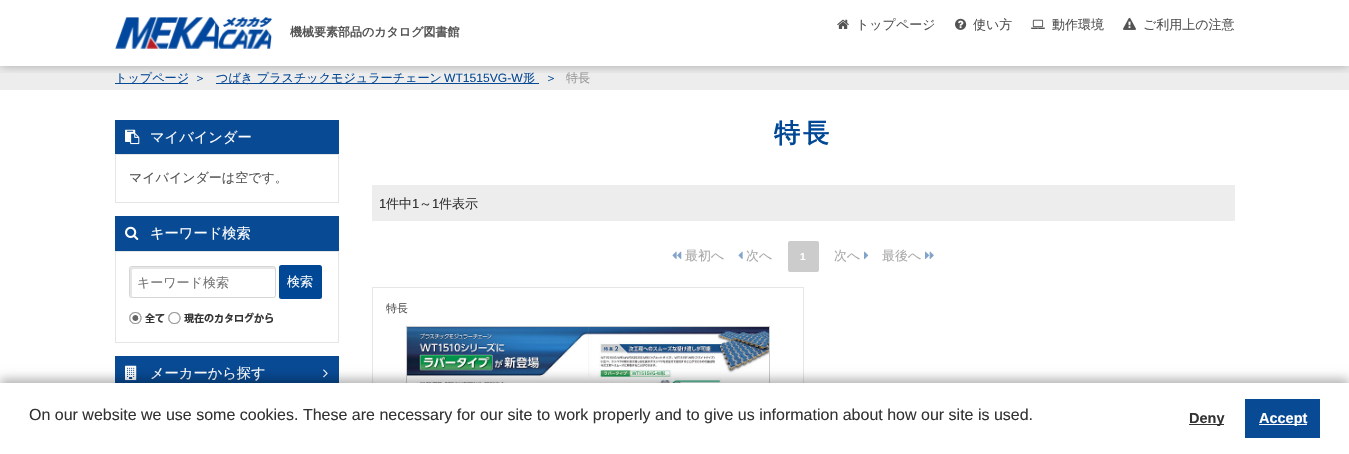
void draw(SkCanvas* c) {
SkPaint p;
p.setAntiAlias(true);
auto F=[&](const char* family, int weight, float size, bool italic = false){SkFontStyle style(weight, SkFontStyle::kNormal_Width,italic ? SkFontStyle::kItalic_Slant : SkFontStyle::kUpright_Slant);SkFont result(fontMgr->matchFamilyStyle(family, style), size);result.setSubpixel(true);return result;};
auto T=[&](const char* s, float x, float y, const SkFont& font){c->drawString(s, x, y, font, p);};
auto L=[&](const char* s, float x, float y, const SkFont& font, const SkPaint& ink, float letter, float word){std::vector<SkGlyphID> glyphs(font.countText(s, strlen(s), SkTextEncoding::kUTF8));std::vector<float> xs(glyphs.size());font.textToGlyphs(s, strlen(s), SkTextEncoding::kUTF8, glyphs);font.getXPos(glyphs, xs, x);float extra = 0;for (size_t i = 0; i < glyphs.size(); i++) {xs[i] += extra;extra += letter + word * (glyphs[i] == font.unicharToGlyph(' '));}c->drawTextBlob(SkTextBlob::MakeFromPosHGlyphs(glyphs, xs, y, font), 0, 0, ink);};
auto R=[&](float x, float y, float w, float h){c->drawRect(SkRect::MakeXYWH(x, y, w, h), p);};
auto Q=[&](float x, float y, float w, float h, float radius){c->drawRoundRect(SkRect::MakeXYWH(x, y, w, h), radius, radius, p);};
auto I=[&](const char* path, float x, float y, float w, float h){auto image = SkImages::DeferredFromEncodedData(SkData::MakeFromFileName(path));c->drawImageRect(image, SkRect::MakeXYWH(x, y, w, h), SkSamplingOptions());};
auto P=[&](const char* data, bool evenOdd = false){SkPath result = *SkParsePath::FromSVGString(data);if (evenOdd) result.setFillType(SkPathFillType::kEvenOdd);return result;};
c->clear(0xffffffff);
p.setColor(0xffededed);
R(0,66,1349,24);
c->save();
c->clipRect(SkRect::MakeXYWH(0,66,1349,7));
p.setColor(0x4d000000);
p.setMaskFilter(SkMaskFilter::MakeBlur(kNormal_SkBlurStyle, 5));
c->drawRect(SkRect::MakeXYWH(0,0,1349,66),p);
p.setMaskFilter(nullptr);
c->restore();
I("1.png",115,17,157,32);
auto f1 = F("WenQuanYi Zen Hei",700,12);
p.setColor(0xff535353);
T("機械要素部品のカタログ図書館",290,36,f1);
I("2.png",837,19,12,10);
auto f2 = F("WenQuanYi Zen Hei",500,13);
T("トップページ",856,29,f2);
I("3.png",955,18,12,12);
T("使い方",973,29,f2);
I("4.png",1031,19,14,10);
T("動作環境",1052,29,f2);
I("5.png",1123,17,13,13);
T("ご利用上の注意",1143,29,f2);
p.setColor(0xff084a94);
R(115,83,73,1);
auto f3 = F("WenQuanYi Zen Hei",500,12.1);
T("トップページ",115,82,f3);
T("＞",194,82,f3);
R(216,83,323,1);
T("つばき プラスチックモジュラーチェーン",216,82,f3);
auto f4 = F("Liberation Sans",400,12.1);
T("WT1515VG-W",444,82,f4);
T("形",523,82,f3);
T("＞",545,82,f3);
p.setColor(0xff999999);
T("特長",566,82,f3);
p.setColor(0xff084a94);
R(115,120,224,34);
I("6.png",125,129,15,16);
auto f5 = F("WenQuanYi Zen Hei",500,14.25);
p.setColor(0xffffffff);
T("マイバインダー",150,142,f5);
p.setStroke(true);
p.setStrokeWidth(1);
p.setColor(0xffe5e5e5);
c->drawRect(SkRect::MakeXYWH(115.5,154.5,223,48),p);
p.setStroke(false);
p.setColor(0xff535353);
T("マイバインダーは空です。",129,182,f2);
p.setColor(0xff084a94);
R(115,216,224,35);
I("7.png",125,226,14,14);
p.setColor(0xffffffff);
T("キーワード検索",150,238,f5);
p.setStroke(true);
p.setColor(0xffe5e5e5);
c->drawRect(SkRect::MakeXYWH(115.5,251.5,223,91),p);
p.setStroke(false);
p.setColor(0xffe6e6e6);
c->drawPath(P("M133 269h141l1 1v-2c0 0-1-1-1-1h-142c-1 0-2 1-2 1v28c0 0 1 1 2 1h1l-1-1v-26zm142 27l-1 1z",true),p);
p.setStroke(true);
p.setColor(0xffd5d5d5);
c->drawRoundRect(SkRect::MakeXYWH(129.5,266.5,146,31),2,2,p);
p.setStroke(false);
p.setColor(0xff757575);
T("キーワード検索",137,287,f2);
p.setColor(0xff004896);
Q(279,265,43,34,2.5);
p.setColor(0xffffffff);
T("検索",287,286,f2);
I("8.png",129,312,36,12);
I("9.png",168,312,105,12);
p.setColor(0xff084a94);
R(115,356,224,27);
I("10.png",125,365,12,16);
p.setColor(0xffffffff);
T("メーカーから探す",150,378,f5);
I("11.png",323,369,5,9);
auto f6 = F("WenQuanYi Zen Hei",700,26);
p.setColor(0xff004896);
L("特長",774,142,f6,p,3,0);
p.setColor(0xffededed);
R(372,185,863,36);
auto f7 = F("Liberation Sans",400,13);
p.setColor(0xff333333);
T("1",379,208,f7);
T("件中",386,208,f2);
T("1",412,208,f7);
T("～",419,208,f2);
T("1",432,208,f7);
T("件表示",439,208,f2);
I("12.png",672,251,10,8);
p.setColor(0xffa9a9a9);
T("最初へ",685,260,f2);
I("13.png",738,251,5,8);
T("次へ",746,260,f2);
p.setColor(0xffcccccc);
Q(788,241,31,31,2);
auto f8 = F("Liberation Sans",700,10);
p.setColor(0xffffffff);
T("1",800,260,f8);
p.setColor(0xffa9a9a9);
T("次へ",834,260,f2);
I("14.png",864,251,5,8);
T("最後へ",882,260,f2);
I("15.png",925,251,9,8);
p.setColor(0xffe5e5e5);
R(372,287,1,96);
R(373,287,431,1);
R(803,287,1,96);
auto f9 = F("WenQuanYi Zen Hei",500,11);
p.setColor(0xff535353);
T("特長",386,312,f9);
p.setStroke(true);
p.setColor(0xffcccccc);
c->drawRect(SkRect::MakeXYWH(406.5,326.5,363,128),p);
I("16.png",407,327,181,56);
I("17.png",588,327,181,56);
p.setStroke(false);
p.setColor(0x4d000000);
p.setMaskFilter(SkMaskFilter::MakeBlur(kNormal_SkBlurStyle, 5));
c->drawRect(SkRect::MakeXYWH(0,379,1349,71),p);
p.setMaskFilter(nullptr);
p.setColor(0xffffffff);
R(0,383,1349,71);
auto f10 = F("Liberation Sans",400,16);
p.setColor(0xff333333);
T("On our website we use some cookies. These are necessary for our site to work properly and to give us information about how our site is used.",29,420,f10);
R(1189,424,35,1);
auto f11 = F("Liberation Sans",700,14.5);
T("Deny",1189,423,f11);
p.setColor(0xff084a94);
R(1245,399,75,39);
p.setColor(0xffffffff);
R(1259,424,48,1);
T("Accept",1259,423,f11);
}
